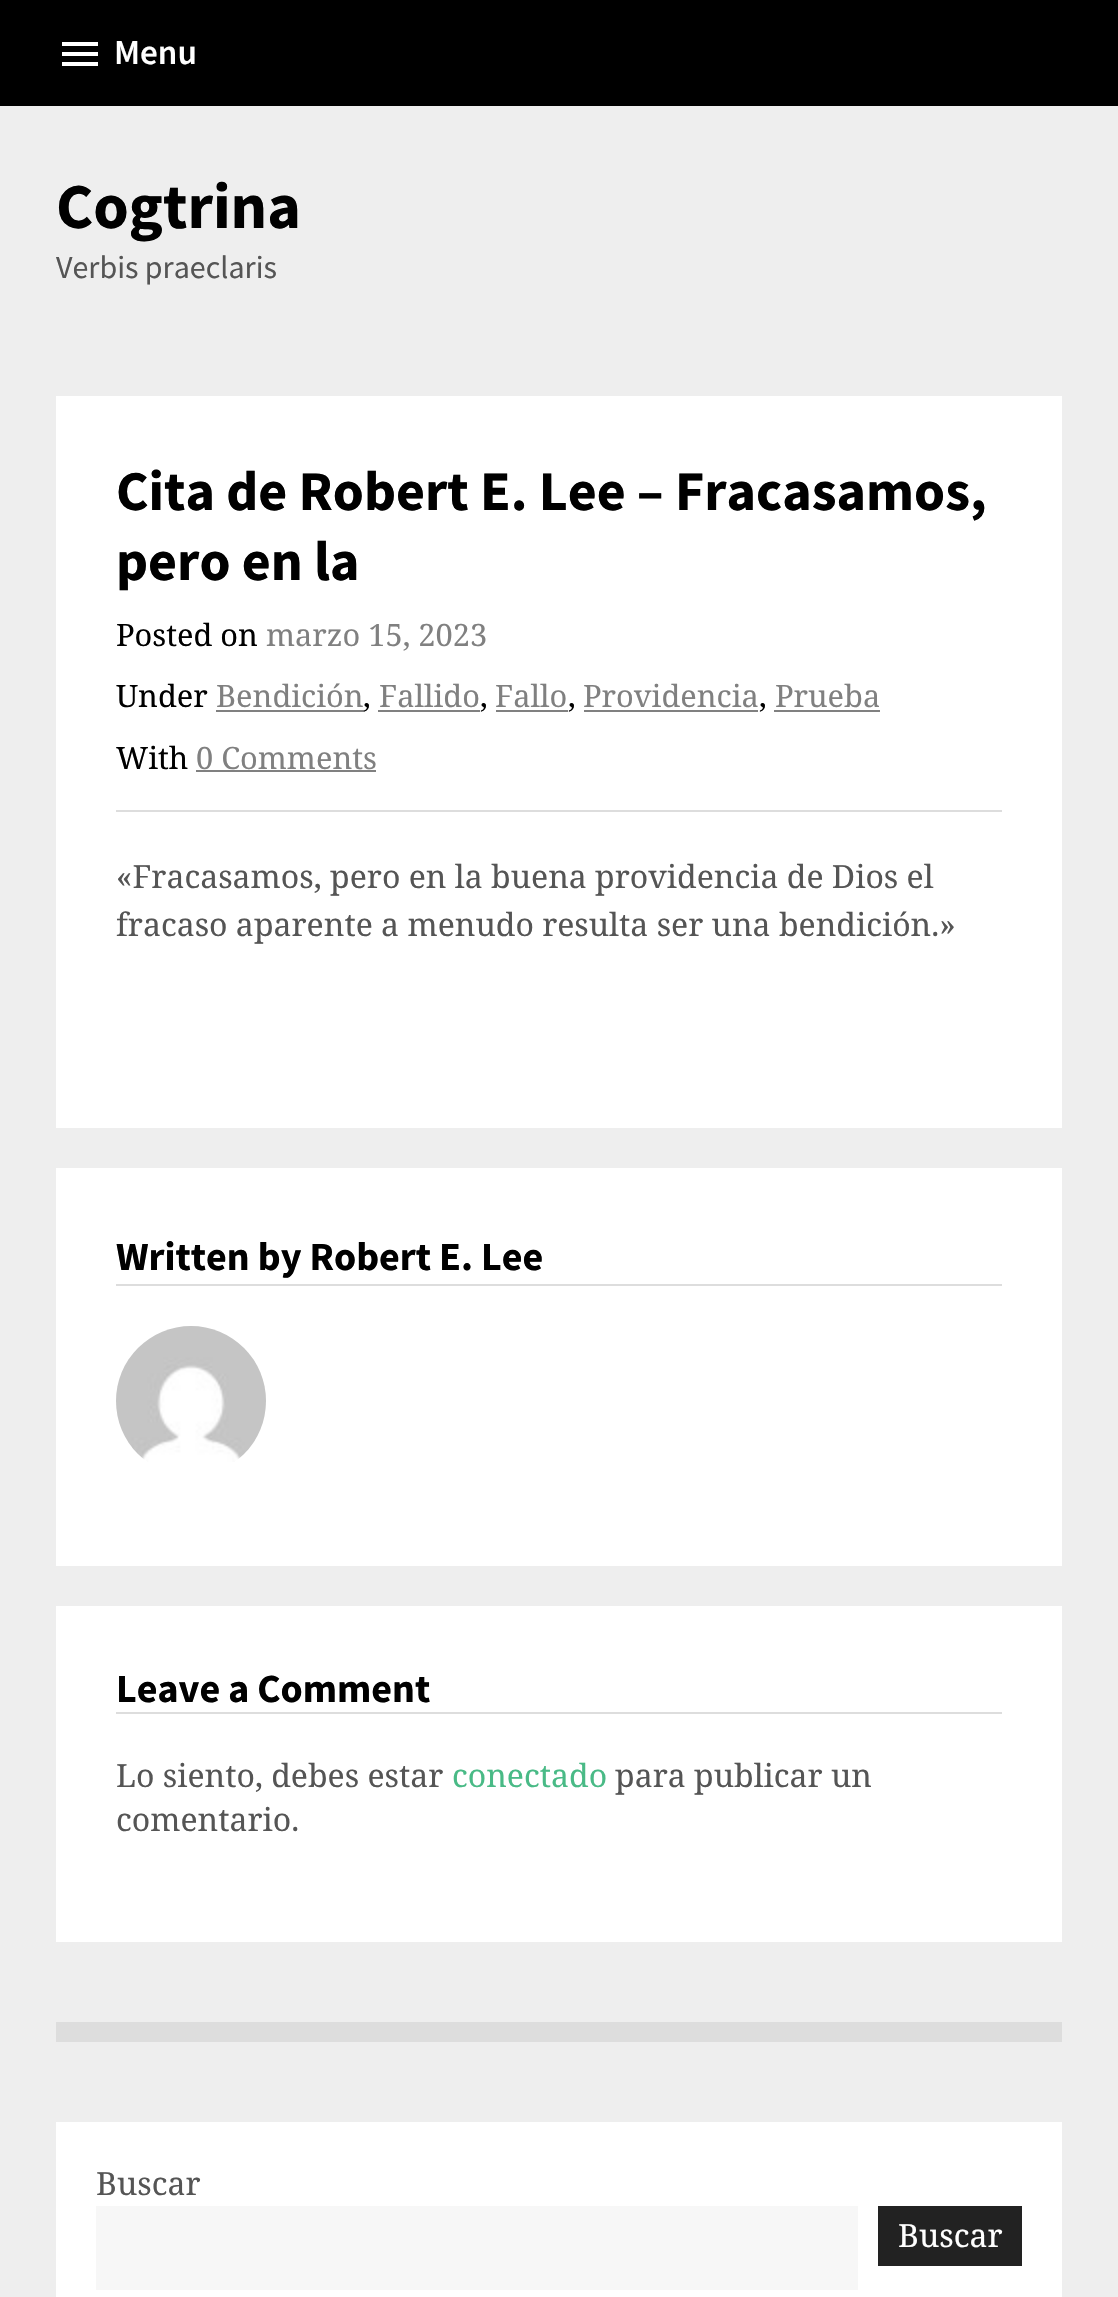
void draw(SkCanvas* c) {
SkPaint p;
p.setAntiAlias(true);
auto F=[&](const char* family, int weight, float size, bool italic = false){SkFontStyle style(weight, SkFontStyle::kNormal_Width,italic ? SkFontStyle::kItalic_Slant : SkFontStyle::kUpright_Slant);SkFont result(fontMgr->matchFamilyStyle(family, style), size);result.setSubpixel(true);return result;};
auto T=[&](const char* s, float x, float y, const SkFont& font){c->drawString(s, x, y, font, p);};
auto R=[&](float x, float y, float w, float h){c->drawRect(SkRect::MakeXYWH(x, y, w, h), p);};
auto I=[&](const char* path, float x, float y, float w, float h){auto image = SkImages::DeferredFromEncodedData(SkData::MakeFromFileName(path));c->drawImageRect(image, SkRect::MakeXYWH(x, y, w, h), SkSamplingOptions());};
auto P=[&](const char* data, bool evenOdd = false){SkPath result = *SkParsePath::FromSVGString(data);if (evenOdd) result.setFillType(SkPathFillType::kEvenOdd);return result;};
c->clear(0xffeeeeee);
p.setColor(0xff000000);
R(0,0,1118,106);
p.setColor(0xffffffff);
c->drawPath(P("M62 66h36v-4h-36zm0-10h36v-4h-36zm0-14v4h36v-4z"),p);
auto f1 = F("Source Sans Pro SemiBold",600,35);
T("Menu",114,64,f1);
auto f2 = F("Source Sans Pro",700,64);
p.setColor(0xff000000);
T("Cogtrina",56,228,f2);
auto f3 = F("Source Sans Pro",400,32);
p.setColor(0xff555555);
T("Verbis praeclaris",56,278,f3);
p.setColor(0xffffffff);
R(56,396,1006,732);
p.setColor(0xffdddddd);
R(116,810,886,2);
auto f4 = F("Source Sans Pro",700,56);
p.setColor(0xff000000);
T("Cita de Robert E. Lee – Fracasamos,",116,510,f4);
T("pero en la",116,580,f4);
auto f5 = F("Noto Serif",400,30.75);
T("Posted on",116,646,f5);
p.setColor(0xff808080);
T("marzo 15, 2023",266,646,f5);
p.setColor(0xff000000);
T("Under",116,707,f5);
p.setColor(0xff808080);
T("Bendición",216,707,f5);
R(216,710,148,2);
p.setColor(0xff000000);
T(",",363,707,f5);
p.setColor(0xff808080);
T("Fallido",379,707,f5);
R(378,710,102,2);
p.setColor(0xff000000);
T(",",480,707,f5);
p.setColor(0xff808080);
T("Fallo",495,707,f5);
R(496,710,72,2);
p.setColor(0xff000000);
T(",",568,707,f5);
p.setColor(0xff808080);
T("Providencia",583,707,f5);
R(584,710,174,2);
p.setColor(0xff000000);
T(",",759,707,f5);
p.setColor(0xff808080);
T("Prueba",775,707,f5);
R(774,710,106,2);
p.setColor(0xff000000);
T("With",116,769,f5);
p.setColor(0xff808080);
T("0 Comments",196,769,f5);
R(196,770,180,2);
auto f6 = F("Noto Serif",400,32);
p.setColor(0xff555555);
T("«Fracasamos, pero en la buena providencia de Dios el",116,888,f6);
T("fracaso aparente a menudo resulta ser una bendición.»",116,936,f6);
p.setColor(0xffffffff);
R(56,1168,1006,398);
p.setColor(0xffdddddd);
R(116,1284,886,2);
auto f7 = F("Source Sans Pro",700,40);
p.setColor(0xff000000);
T("Written by Robert E. Lee",116,1270,f7);
I("1.png",116,1326,150,136);
p.setColor(0xffffffff);
R(56,1606,1006,336);
p.setColor(0xffdddddd);
R(116,1712,886,2);
p.setColor(0xff000000);
T("Leave a Comment",116,1702,f7);
p.setColor(0xff555555);
T("Lo siento, debes estar",116,1787,f6);
p.setColor(0xff49ba86);
T("conectado",452,1787,f6);
p.setColor(0xff555555);
T("para publicar un",615,1787,f6);
T("comentario.",116,1831,f6);
p.setColor(0xffdddddd);
R(56,2022,1006,20);
p.setColor(0xffffffff);
R(56,2122,1006,175);
p.setColor(0xff555555);
T("Buscar",96,2195,f6);
p.setColor(0xfff7f7f7);
R(96,2206,762,84);
p.setColor(0xff222222);
R(878,2206,144,60);
p.setColor(0xffffffff);
T("Buscar",898,2247,f6);
}
